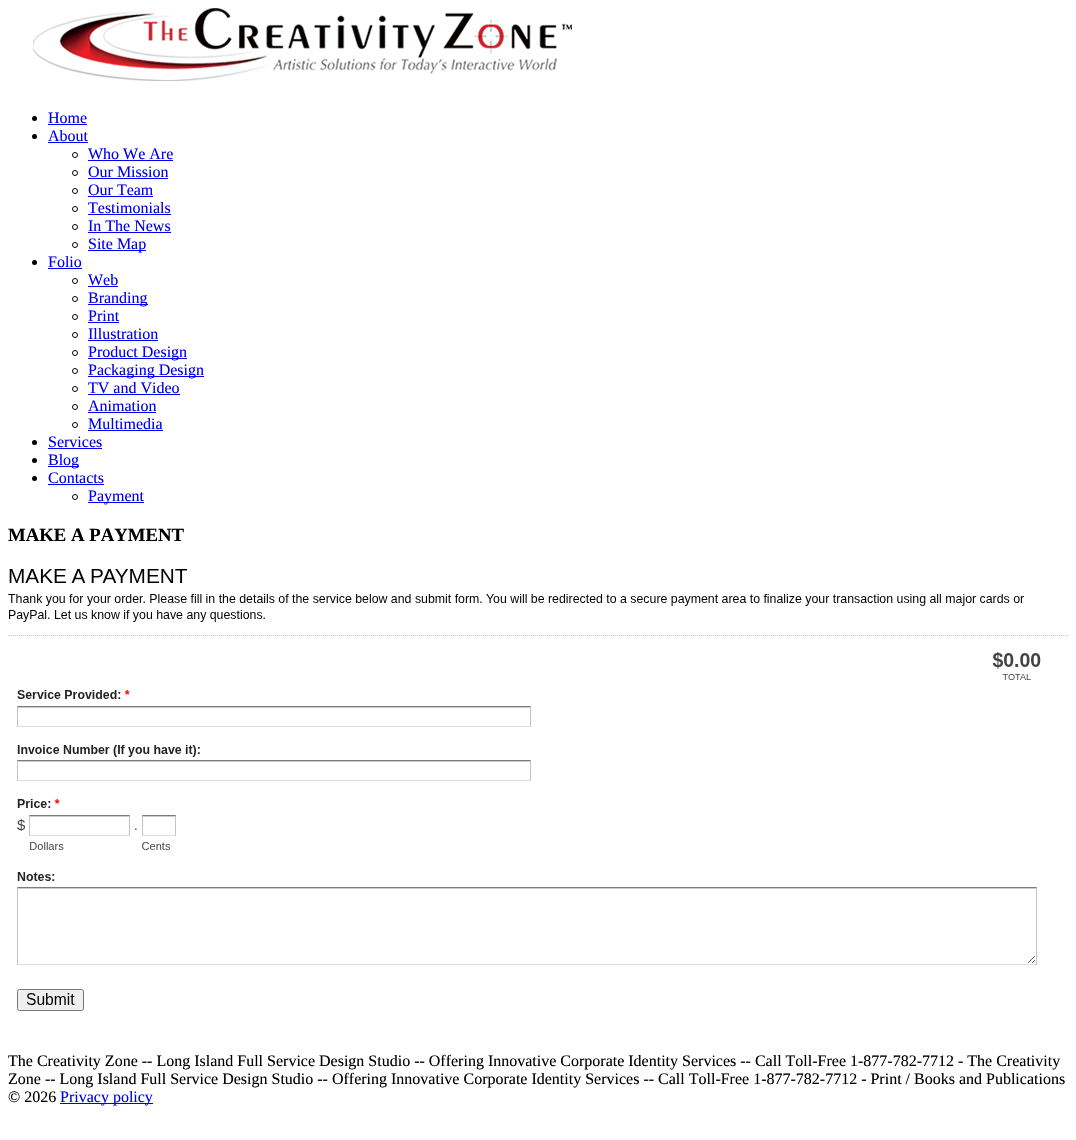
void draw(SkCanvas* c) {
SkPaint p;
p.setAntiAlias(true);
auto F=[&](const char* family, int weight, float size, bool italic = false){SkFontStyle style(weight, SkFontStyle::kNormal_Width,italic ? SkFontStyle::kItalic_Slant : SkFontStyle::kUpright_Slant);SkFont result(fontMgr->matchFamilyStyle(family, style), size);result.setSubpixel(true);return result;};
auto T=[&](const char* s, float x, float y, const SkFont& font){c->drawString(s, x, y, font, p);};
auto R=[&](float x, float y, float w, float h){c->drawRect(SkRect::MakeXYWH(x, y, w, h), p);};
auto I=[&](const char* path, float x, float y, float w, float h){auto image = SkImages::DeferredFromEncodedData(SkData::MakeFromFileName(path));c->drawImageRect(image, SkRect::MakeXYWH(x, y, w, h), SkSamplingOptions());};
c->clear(0xffffffff);
I("1.png",33,8,539,73);
p.setColor(0xff000000);
c->drawCircle(34.5,118.5,2.5,p);
auto f1 = F("Liberation Serif",400,16);
p.setColor(0xff0000ee);
T("Home",48,123,f1);
R(48,124,39,1);
p.setColor(0xff000000);
c->drawCircle(34.5,136.5,2.5,p);
p.setColor(0xff0000ee);
T("About",48,141,f1);
R(48,142,40,1);
p.setStroke(true);
p.setStrokeWidth(1);
p.setColor(0xff000000);
c->drawCircle(75,155,2.5,p);
p.setStroke(false);
p.setColor(0xff0000ee);
T("Who We Are",88,159,f1);
R(88,160,85,1);
p.setStroke(true);
p.setColor(0xff000000);
c->drawCircle(75,173,2.5,p);
p.setStroke(false);
p.setColor(0xff0000ee);
T("Our Mission",88,177,f1);
R(88,178,80,1);
p.setStroke(true);
p.setColor(0xff000000);
c->drawCircle(75,191,2.5,p);
p.setStroke(false);
p.setColor(0xff0000ee);
T("Our Team",88,195,f1);
R(88,196,65,1);
p.setStroke(true);
p.setColor(0xff000000);
c->drawCircle(75,209,2.5,p);
p.setStroke(false);
p.setColor(0xff0000ee);
T("Testimonials",88,213,f1);
R(88,214,83,1);
p.setStroke(true);
p.setColor(0xff000000);
c->drawCircle(75,227,2.5,p);
p.setStroke(false);
p.setColor(0xff0000ee);
T("In The News",88,231,f1);
R(88,232,83,1);
p.setStroke(true);
p.setColor(0xff000000);
c->drawCircle(75,245,2.5,p);
p.setStroke(false);
p.setColor(0xff0000ee);
R(88,250,58,1);
T("Site Map",88,249,f1);
p.setColor(0xff000000);
c->drawCircle(34.5,262.5,2.5,p);
p.setColor(0xff0000ee);
T("Folio",48,267,f1);
R(48,268,34,1);
p.setStroke(true);
p.setColor(0xff000000);
c->drawCircle(75,281,2.5,p);
p.setStroke(false);
p.setColor(0xff0000ee);
T("Web",88,285,f1);
R(88,286,30,1);
p.setStroke(true);
p.setColor(0xff000000);
c->drawCircle(75,299,2.5,p);
p.setStroke(false);
p.setColor(0xff0000ee);
R(88,304,60,1);
T("Branding",88,303,f1);
p.setStroke(true);
p.setColor(0xff000000);
c->drawCircle(75,317,2.5,p);
p.setStroke(false);
p.setColor(0xff0000ee);
T("Print",88,321,f1);
R(88,322,31,1);
p.setStroke(true);
p.setColor(0xff000000);
c->drawCircle(75,335,2.5,p);
p.setStroke(false);
p.setColor(0xff0000ee);
T("Illustration",88,339,f1);
R(88,340,70,1);
p.setStroke(true);
p.setColor(0xff000000);
c->drawCircle(75,353,2.5,p);
p.setStroke(false);
p.setColor(0xff0000ee);
R(88,358,99,1);
T("Product Design",88,357,f1);
p.setStroke(true);
p.setColor(0xff000000);
c->drawCircle(75,371,2.5,p);
p.setStroke(false);
p.setColor(0xff0000ee);
R(88,376,116,1);
T("Packaging Design",88,375,f1);
p.setStroke(true);
p.setColor(0xff000000);
c->drawCircle(75,389,2.5,p);
p.setStroke(false);
p.setColor(0xff0000ee);
T("TV and Video",88,393,f1);
R(88,394,92,1);
p.setStroke(true);
p.setColor(0xff000000);
c->drawCircle(75,407,2.5,p);
p.setStroke(false);
p.setColor(0xff0000ee);
T("Animation",88,411,f1);
R(88,412,68,1);
p.setStroke(true);
p.setColor(0xff000000);
c->drawCircle(75,425,2.5,p);
p.setStroke(false);
p.setColor(0xff0000ee);
T("Multimedia",88,429,f1);
R(88,430,75,1);
p.setColor(0xff000000);
c->drawCircle(34.5,442.5,2.5,p);
p.setColor(0xff0000ee);
T("Services",48,447,f1);
R(48,448,54,1);
p.setColor(0xff000000);
c->drawCircle(34.5,460.5,2.5,p);
p.setColor(0xff0000ee);
R(48,466,31,1);
T("Blog",48,465,f1);
p.setColor(0xff000000);
c->drawCircle(34.5,478.5,2.5,p);
p.setColor(0xff0000ee);
T("Contacts",48,483,f1);
R(48,484,56,1);
p.setStroke(true);
p.setColor(0xff000000);
c->drawCircle(75,497,2.5,p);
p.setStroke(false);
p.setColor(0xff0000ee);
R(88,502,56,1);
T("Payment",88,501,f1);
auto f2 = F("Liberation Serif",700,18.75);
p.setColor(0xff000000);
T("MAKE A PAYMENT",8,541,f2);
I("2.png",8,569,1060,442);
T("The Creativity Zone -- Long Island Full Service Design Studio -- Offering Innovative Corporate Identity Services -- Call Toll-Free 1-877-782-7712 - The Creativity",8,1066,f1);
T("Zone -- Long Island Full Service Design Studio -- Offering Innovative Corporate Identity Services -- Call Toll-Free 1-877-782-7712 - Print / Books and Publications",8,1084,f1);
T("© 2026",8,1102,f1);
p.setColor(0xff0000ee);
R(60,1103,93,1);
T("Privacy policy",60,1102,f1);
}
